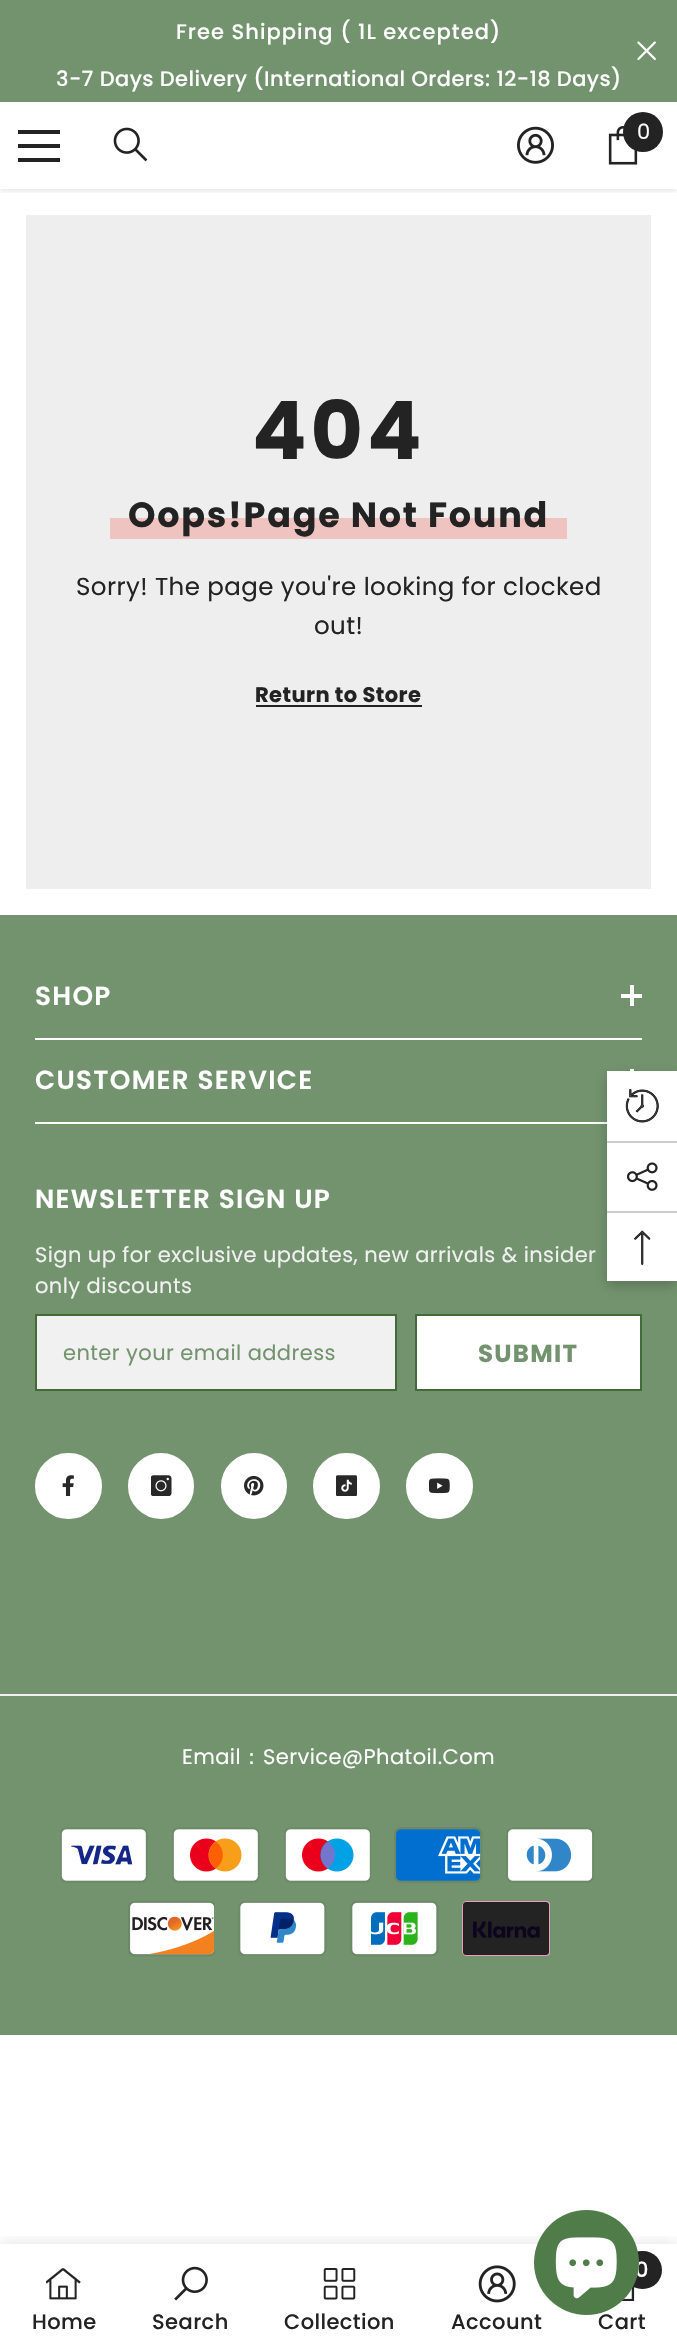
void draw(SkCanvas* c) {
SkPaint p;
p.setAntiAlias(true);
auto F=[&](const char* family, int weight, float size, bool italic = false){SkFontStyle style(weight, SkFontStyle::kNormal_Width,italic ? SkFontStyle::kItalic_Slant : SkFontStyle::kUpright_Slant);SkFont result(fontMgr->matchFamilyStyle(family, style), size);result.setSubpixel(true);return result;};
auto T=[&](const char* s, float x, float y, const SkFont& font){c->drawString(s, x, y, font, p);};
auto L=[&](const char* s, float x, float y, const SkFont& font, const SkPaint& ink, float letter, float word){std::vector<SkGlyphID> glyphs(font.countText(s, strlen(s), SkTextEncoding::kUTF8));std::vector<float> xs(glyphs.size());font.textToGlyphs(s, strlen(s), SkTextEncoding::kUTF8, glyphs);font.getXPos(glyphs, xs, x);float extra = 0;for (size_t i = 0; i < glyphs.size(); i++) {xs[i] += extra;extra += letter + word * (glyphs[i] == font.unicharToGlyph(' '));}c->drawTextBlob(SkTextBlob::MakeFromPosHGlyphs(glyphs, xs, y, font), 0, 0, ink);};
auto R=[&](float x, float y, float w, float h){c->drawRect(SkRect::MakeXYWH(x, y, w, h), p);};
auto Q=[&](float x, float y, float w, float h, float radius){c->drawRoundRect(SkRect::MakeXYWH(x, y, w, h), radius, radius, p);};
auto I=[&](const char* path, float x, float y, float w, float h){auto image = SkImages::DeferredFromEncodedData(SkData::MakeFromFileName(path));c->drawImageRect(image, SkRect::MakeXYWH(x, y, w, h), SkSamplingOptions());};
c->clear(0xffffffff);
p.setColor(0xff73936e);
R(0,0,677,102);
auto f1 = F("Poppins",500,21);
p.setColor(0xffffffff);
L("Free Shipping ( 1L excepted)",176,39,f1,p,1.05,0);
L("3-7 Days Delivery (International Orders: 12-18 Days)",56,86,f1,p,.42,0);
I("1.png",637,41,19,19);
c->save();
c->clipRect(SkRect::MakeXYWH(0,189,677,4));
p.setColor(0x1a000000);
p.setMaskFilter(SkMaskFilter::MakeBlur(kNormal_SkBlurStyle, 2.5));
c->drawRect(SkRect::MakeXYWH(0,103,677,88),p);
p.setMaskFilter(nullptr);
c->restore();
p.setColor(0xff232323);
R(18,144,42,4);
R(18,130,42,4);
R(18,158,42,4);
I("2.png",113,127,35,35);
I("3.png",517,126,37,38);
I("4.png",608,126,30,39);
c->drawCircle(643,132,20,p);
auto f2 = F("Poppins",400,21);
p.setColor(0xffffffff);
T("0",637,139,f2);
p.setColor(0xffeeeeee);
R(26,215,625,674);
auto f3 = F("Poppins",700,80.5);
p.setColor(0xff232323);
L("404",252,459,f3,p,4,0);
p.setColor(0xffefc3c0);
R(110,518,457,21);
auto f4 = F("Poppins",700,35);
p.setColor(0xff232323);
L("Oops!Page Not Found",128,527,f4,p,1.75,0);
auto f5 = F("Poppins",400,24.5);
L("Sorry! The page you're looking for clocked",76,595,f5,p,.42,0);
L("out!",314,634,f5,p,.42,0);
auto f6 = F("Poppins",700,21);
L("Return to Store",255,702,f6,p,.42,0);
R(256,705,166,2);
p.setColor(0xff73936e);
R(0,915,677,779);
p.setColor(0xffffffff);
R(35,1038,607,2);
auto f7 = F("Poppins",600,26.25);
L("SHOP",35,1005,f7,p,1.3,0);
R(630,985,4,21);
R(621,994,21,4);
R(35,1122,572,2);
L("CUSTOMER SERVICE",35,1089,f7,p,1.3,0);
R(630,1069,4,2);
L("NEWSLETTER SIGN UP",35,1208,f7,p,1.3,0);
p.setColor(0xfff1f1f1);
L("Sign up for exclusive updates, new arrivals & insider",35,1262,f2,p,.42,0);
L("only discounts",35,1293,f2,p,.42,0);
c->drawRect(SkRect::MakeXYWH(36,1315,360,75),p);
p.setStroke(true);
p.setStrokeWidth(2);
p.setColor(0xff446a37);
c->drawRect(SkRect::MakeXYWH(36,1315,360,75),p);
p.setStroke(false);
p.setColor(0xff73936e);
L("enter your email address",63,1360,f2,p,.42,0);
p.setColor(0xffffffff);
c->drawRect(SkRect::MakeXYWH(416,1315,225,75),p);
p.setStroke(true);
p.setColor(0xff446a37);
c->drawRect(SkRect::MakeXYWH(416,1315,225,75),p);
auto f8 = F("Poppins",700,24.5);
p.setStroke(false);
p.setColor(0xff73936e);
L("SUBMIT",478,1362,f8,p,1.25,0);
p.setColor(0xffffffff);
c->drawRoundRect(SkRect::MakeXYWH(36,1454,65,64),32,32,p);
p.setStroke(true);
c->drawRoundRect(SkRect::MakeXYWH(36,1454,65,64),32,32,p);
I("5.png",62,1475,12,21);
p.setStroke(false);
c->drawCircle(161,1486,32,p);
p.setStroke(true);
c->drawCircle(161,1486,32,p);
I("6.png",151,1475,21,21);
p.setStroke(false);
c->drawCircle(254,1486,32,p);
p.setStroke(true);
c->drawCircle(254,1486,32,p);
I("7.png",244,1475,20,21);
p.setStroke(false);
c->drawRoundRect(SkRect::MakeXYWH(314,1454,65,64),32,32,p);
p.setStroke(true);
c->drawRoundRect(SkRect::MakeXYWH(314,1454,65,64),32,32,p);
I("8.png",336,1475,21,21);
p.setStroke(false);
c->drawRoundRect(SkRect::MakeXYWH(407,1454,65,64),32,32,p);
p.setStroke(true);
c->drawRoundRect(SkRect::MakeXYWH(407,1454,65,64),32,32,p);
I("9.png",429,1478,21,16);
p.setStroke(false);
p.setColor(0xff73936e);
R(0,1696,677,339);
p.setColor(0xfff1f1f1);
R(0,1694,677,2);
p.setColor(0xffffffff);
L("Email",182,1764,f2,p,.42,0);
auto f9 = F("WenQuanYi Zen Hei",500,21);
L("：",241,1764,f9,p,.42,0);
L("Service@Phatoil.Com",263,1764,f2,p,.42,0);
I("10.png",60,1827,88,56);
I("11.png",172,1827,88,56);
I("12.png",284,1827,87,56);
I("13.png",394,1827,89,56);
I("14.png",506,1827,88,56);
I("15.png",128,1901,87,56);
I("16.png",238,1901,89,55);
I("17.png",350,1901,89,56);
I("18.png",462,1901,88,55);
c->save();
c->clipRect(SkRect::MakeXYWH(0,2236,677,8));
p.setColor(0x1f000000);
p.setMaskFilter(SkMaskFilter::MakeBlur(kNormal_SkBlurStyle, 8));
c->drawRect(SkRect::MakeXYWH(0,2244,677,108),p);
p.setMaskFilter(nullptr);
c->restore();
I("19.png",46,2268,35,32);
p.setColor(0xff232323);
L("Home",32,2329,f1,p,.42,0);
I("20.png",174,2266,34,35);
L("Search",152,2329,f1,p,.42,0);
I("21.png",323,2268,33,32);
L("Collection",284,2329,f1,p,.42,0);
I("22.png",478,2265,38,38);
L("Account",451,2329,f1,p,.42,0);
I("23.png",622,2286,13,15);
Q(623,2251,39,38,19);
p.setColor(0xffffffff);
T("0",635,2277,f1);
p.setColor(0xff232323);
L("Cart",598,2329,f1,p,.42,0);
p.setColor(0x33000000);
p.setMaskFilter(SkMaskFilter::MakeBlur(kNormal_SkBlurStyle, 6));
c->drawRect(SkRect::MakeXYWH(607,1076,70,210),p);
p.setMaskFilter(nullptr);
p.setColor(0xffffffff);
R(607,1071,70,210);
I("24.png",625,1089,34,34);
p.setColor(0xffcccccc);
R(607,1141,70,2);
I("25.png",626,1162,32,29);
R(607,1211,70,2);
I("26.png",634,1230,17,35);
p.setColor(0xff507c49);
c->drawCircle(586.5,2262.5,52.5,p);
I("27.png",555,2237,62,62);
}
